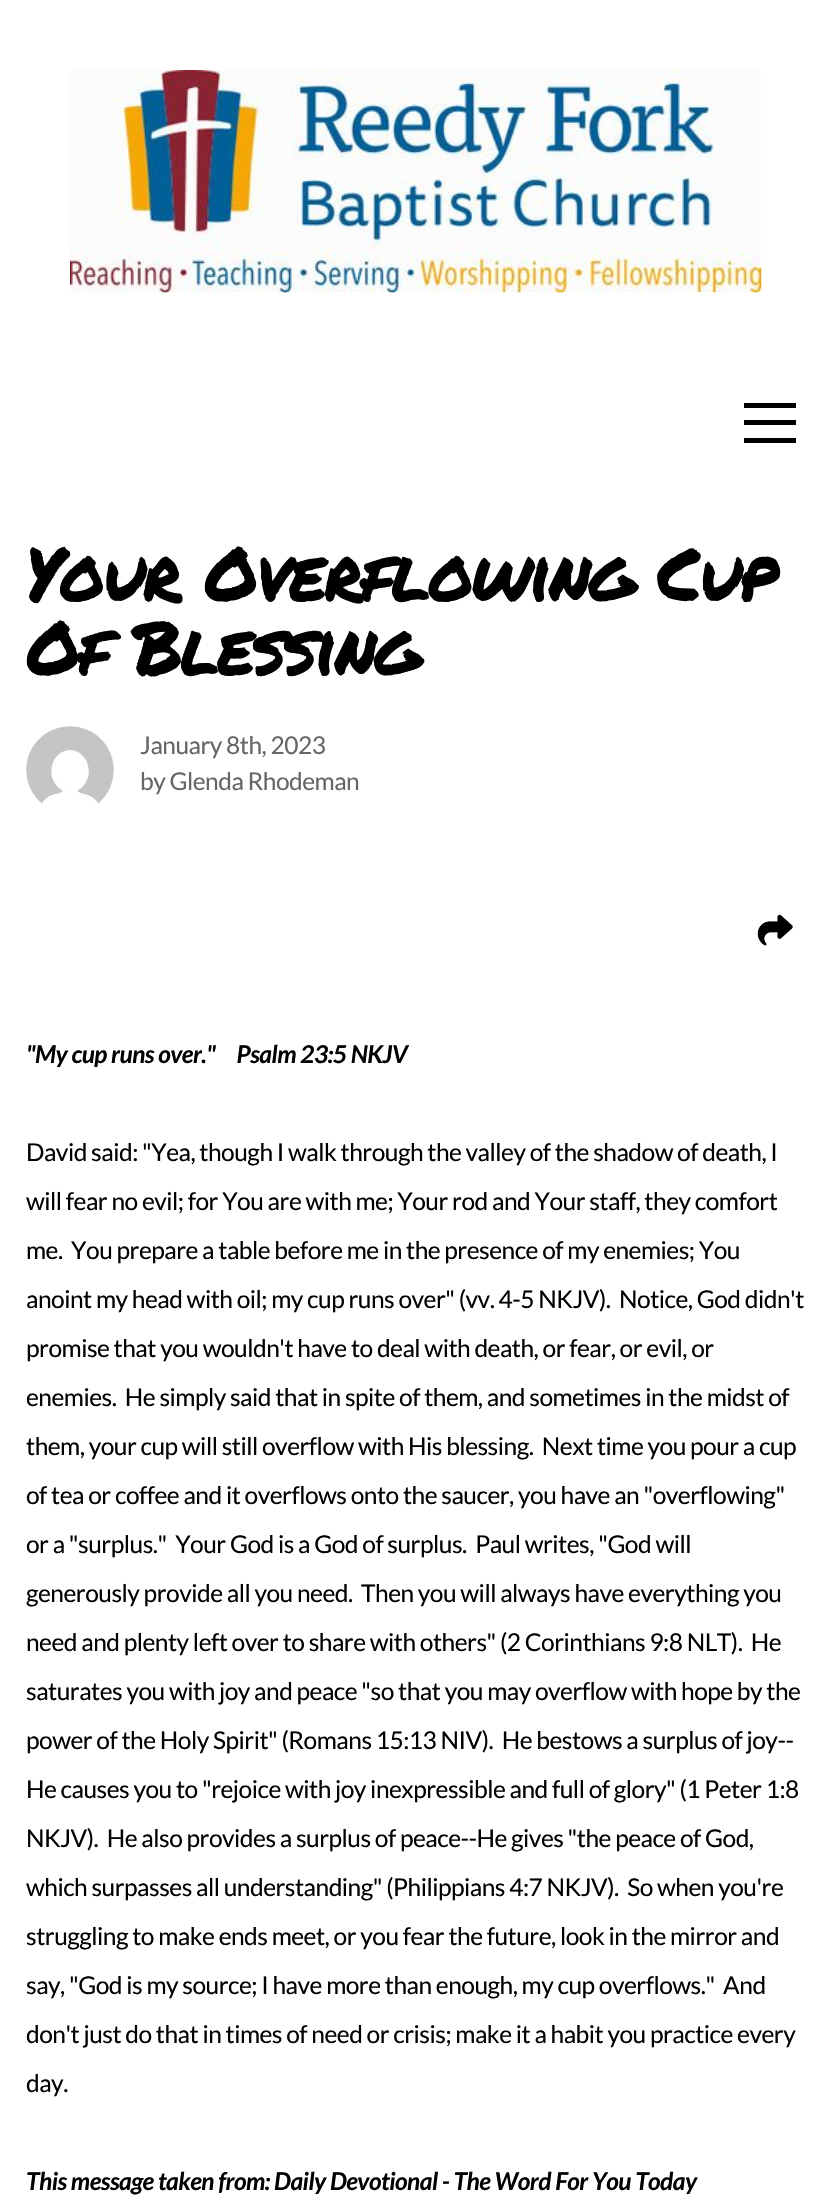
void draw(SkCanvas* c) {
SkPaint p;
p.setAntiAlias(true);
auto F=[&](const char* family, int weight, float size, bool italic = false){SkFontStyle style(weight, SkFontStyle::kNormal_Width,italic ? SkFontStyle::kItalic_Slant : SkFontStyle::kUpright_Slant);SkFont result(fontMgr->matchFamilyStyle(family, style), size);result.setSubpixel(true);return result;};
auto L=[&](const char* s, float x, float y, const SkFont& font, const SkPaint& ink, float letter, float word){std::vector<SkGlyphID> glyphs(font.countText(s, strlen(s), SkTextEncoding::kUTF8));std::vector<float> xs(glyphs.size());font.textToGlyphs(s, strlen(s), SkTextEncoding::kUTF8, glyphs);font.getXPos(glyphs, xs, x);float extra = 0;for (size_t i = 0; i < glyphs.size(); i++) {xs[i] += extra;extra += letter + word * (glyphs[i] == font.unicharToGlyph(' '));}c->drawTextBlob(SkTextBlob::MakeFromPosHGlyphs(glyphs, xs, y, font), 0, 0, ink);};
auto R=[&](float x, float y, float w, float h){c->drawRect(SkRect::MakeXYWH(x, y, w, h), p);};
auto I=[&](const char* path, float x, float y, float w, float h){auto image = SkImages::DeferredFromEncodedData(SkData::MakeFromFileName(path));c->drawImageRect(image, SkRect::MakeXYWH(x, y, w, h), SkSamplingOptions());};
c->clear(0xffffffff);
I("1.png",70,70,692,223);
p.setColor(0xff000000);
R(744,403,52,5);
R(744,420,52,5);
R(744,438,52,5);
auto f1 = F("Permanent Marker",400,73.5);
L("Your Overflowing Cup",26,601,f1,p,-2.9,0);
L("Of Blessing",26,675,f1,p,-2.9,0);
I("2.png",26,726,88,78);
auto f2 = F("Lato",400,24.5);
p.setColor(0xff666666);
L("January 8th, 2023",140,754,f2,p,-.5,0);
L("by Glenda Rhodeman",140,790,f2,p,-.5,0);
I("3.png",757,914,36,32);
auto f3 = F("Lato",700,24.5,true);
p.setColor(0xff000000);
L("\"My cup runs over.\"     Psalm 23:5 NKJV",26,1063,f3,p,-.5,0);
L("David said: \"Yea, though I walk through the valley of the shadow of death, I",26,1161,f2,p,-.5,0);
L("will fear no evil; for You are with me; Your rod and Your staff, they comfort",26,1210,f2,p,-.5,0);
L("me.  You prepare a table before me in the presence of my enemies; You",26,1259,f2,p,-.5,0);
L("anoint my head with oil; my cup runs over\" (vv. 4-5 NKJV).  Notice, God didn't",26,1308,f2,p,-.5,0);
L("promise that you wouldn't have to deal with death, or fear, or evil, or",26,1357,f2,p,-.5,0);
L("enemies.  He simply said that in spite of them, and sometimes in the midst of",26,1406,f2,p,-.5,0);
L("them, your cup will still overflow with His blessing.  Next time you pour a cup",26,1455,f2,p,-.5,0);
L("of tea or coffee and it overflows onto the saucer, you have an \"overflowing\"",26,1504,f2,p,-.5,0);
L("or a \"surplus.\"  Your God is a God of surplus.  Paul writes, \"God will",26,1553,f2,p,-.5,0);
L("generously provide all you need.  Then you will always have everything you",26,1602,f2,p,-.5,0);
L("need and plenty left over to share with others\" (2 Corinthians 9:8 NLT).  He",26,1651,f2,p,-.5,0);
L("saturates you with joy and peace \"so that you may overflow with hope by the",26,1700,f2,p,-.5,0);
L("power of the Holy Spirit\" (Romans 15:13 NIV).  He bestows a surplus of joy--",26,1749,f2,p,-.5,0);
L("He causes you to \"rejoice with joy inexpressible and full of glory\" (1 Peter 1:8",26,1798,f2,p,-.5,0);
L("NKJV).  He also provides a surplus of peace--He gives \"the peace of God,",26,1847,f2,p,-.5,0);
L("which surpasses all understanding\" (Philippians 4:7 NKJV).  So when you're",26,1896,f2,p,-.5,0);
L("struggling to make ends meet, or you fear the future, look in the mirror and",26,1945,f2,p,-.5,0);
L("say, \"God is my source; I have more than enough, my cup overflows.\"  And",26,1994,f2,p,-.5,0);
L("don't just do that in times of need or crisis; make it a habit you practice every",26,2043,f2,p,-.5,0);
L("day.",26,2092,f2,p,-.5,0);
L("This message taken from: Daily Devotional - The Word For You Today",26,2190,f3,p,-.5,0);
}
